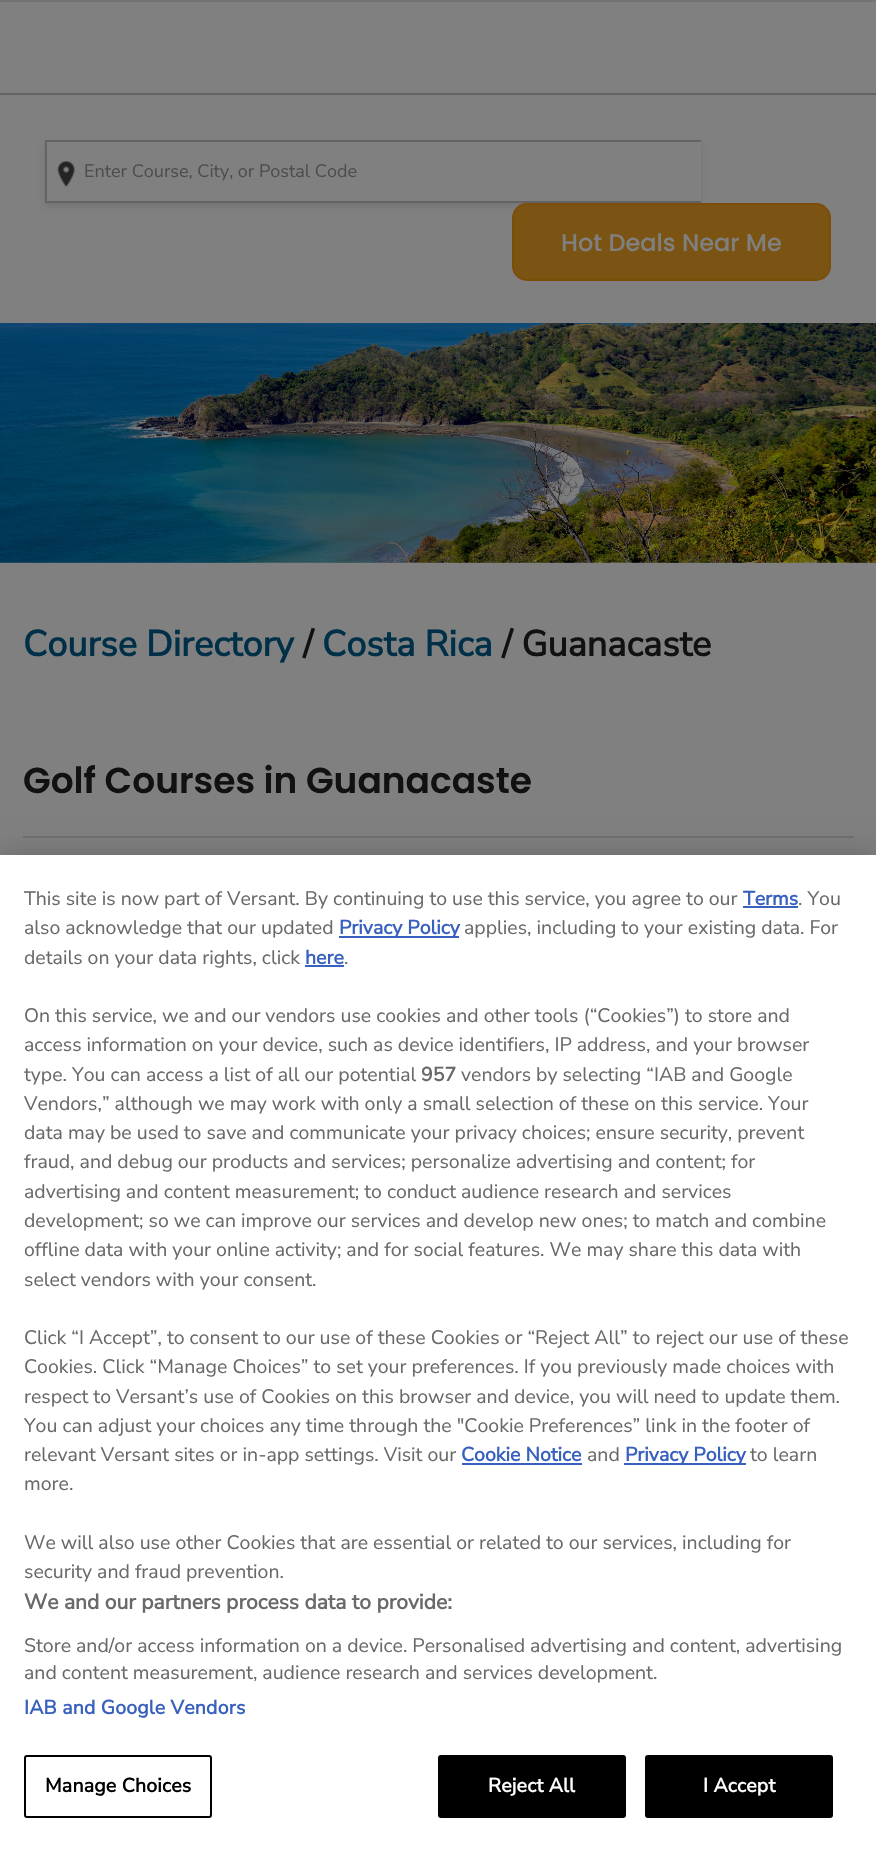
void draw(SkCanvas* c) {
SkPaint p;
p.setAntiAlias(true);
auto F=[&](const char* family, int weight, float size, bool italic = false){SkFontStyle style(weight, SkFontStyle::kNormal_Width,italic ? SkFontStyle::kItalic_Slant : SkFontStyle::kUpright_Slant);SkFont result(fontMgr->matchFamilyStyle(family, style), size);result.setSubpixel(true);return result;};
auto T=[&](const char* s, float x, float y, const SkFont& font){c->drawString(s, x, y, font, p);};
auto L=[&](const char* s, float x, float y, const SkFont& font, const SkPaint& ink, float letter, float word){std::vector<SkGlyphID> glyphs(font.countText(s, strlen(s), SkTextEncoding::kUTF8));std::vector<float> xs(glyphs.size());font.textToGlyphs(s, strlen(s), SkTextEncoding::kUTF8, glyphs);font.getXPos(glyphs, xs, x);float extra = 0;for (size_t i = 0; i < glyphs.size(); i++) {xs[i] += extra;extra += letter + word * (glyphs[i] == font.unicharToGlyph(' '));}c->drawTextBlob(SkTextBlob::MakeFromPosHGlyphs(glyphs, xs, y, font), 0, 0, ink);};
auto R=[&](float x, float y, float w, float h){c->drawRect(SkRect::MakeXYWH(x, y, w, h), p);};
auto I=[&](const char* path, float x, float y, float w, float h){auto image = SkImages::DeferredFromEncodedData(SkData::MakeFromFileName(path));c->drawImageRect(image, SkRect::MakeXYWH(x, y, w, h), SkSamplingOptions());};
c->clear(0xff808080);
p.setColor(0xff737373);
R(0,0,876,2);
p.setColor(0xff636363);
R(0,93,876,2);
p.setColor(0x1a000000);
p.setMaskFilter(SkMaskFilter::MakeBlur(kNormal_SkBlurStyle, 3));
c->drawRect(SkRect::MakeXYWH(45,143,656,63),p);
p.setMaskFilter(nullptr);
p.setColor(0xff808080);
R(47,142,654,59);
I("1.png",57,161,18,26);
p.setColor(0xff636363);
R(45,140,656,2);
R(45,201,656,2);
R(45,140,2,63);
auto f1 = F("Nunito Sans",200,18);
p.setColor(0xff4d4d4d);
T("Enter Course, City, or Postal Code",84,177,f1);
p.setColor(0xff7b5312);
c->drawRoundRect(SkRect::MakeXYWH(513,204,317,76),14,14,p);
p.setStroke(true);
p.setStrokeWidth(2);
p.setColor(0xff7a4e06);
c->drawRoundRect(SkRect::MakeXYWH(513,204,317,76),14,14,p);
auto f2 = F("Poppins",500,24);
p.setStroke(false);
p.setColor(0xff808080);
T("Hot Deals Near Me",561,251,f2);
I("2.png",0,323,876,240);
auto f3 = F("Nunito Sans",700,36);
p.setColor(0xff003048);
T("Course Directory",23,656,f3);
p.setColor(0xff111111);
T("/",303,656,f3);
p.setColor(0xff003048);
T("Costa Rica",322,656,f3);
p.setColor(0xff111111);
T("/ Guanacaste",502,656,f3);
auto f4 = F("Poppins",600,36);
T("Golf Courses in Guanacaste",23,793,f4);
p.setColor(0xff6f6f6f);
R(23,836,831,2);
p.setColor(0x33000000);
p.setMaskFilter(SkMaskFilter::MakeBlur(kNormal_SkBlurStyle, 13.5));
c->drawRect(SkRect::MakeXYWH(0,855,876,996),p);
p.setMaskFilter(nullptr);
p.setColor(0xffffffff);
R(0,855,876,995);
auto f5 = F("Nunito Sans",200,19.5);
p.setColor(0xff696969);
T("This site is now part of Versant. By continuing to use this service, you agree to our",24,905,f5);
auto f6 = F("Nunito Sans",700,19.5);
p.setColor(0xff3860be);
T("Terms",743,905,f6);
R(743,906,55,2);
p.setColor(0xff696969);
T(". You",798,905,f5);
T("also acknowledge that our updated",24,934,f5);
p.setColor(0xff3860be);
R(339,936,120,2);
T("Privacy Policy",339,934,f6);
p.setColor(0xff696969);
T("applies, including to your existing data. For",464,934,f5);
T("details on your data rights, click",24,964,f5);
p.setColor(0xff3860be);
T("here",305,964,f6);
R(305,965,39,2);
p.setColor(0xff696969);
T(".",344,964,f5);
T("On this service, we and our vendors use cookies and other tools (“Cookies”) to store and",24,1022,f5);
T("access information on your device, such as device identifiers, IP address, and your browser",24,1051,f5);
T("type. You can access a list of all our potential",24,1081,f5);
T("957",421,1081,f6);
T("vendors by selecting “IAB and Google",461,1081,f5);
T("Vendors,” although we may work with only a small selection of these on this service. Your",24,1110,f5);
T("data may be used to save and communicate your privacy choices; ensure security, prevent",24,1139,f5);
T("fraud, and debug our products and services; personalize advertising and content; for",24,1168,f5);
T("advertising and content measurement; to conduct audience research and services",24,1198,f5);
T("development; so we can improve our services and develop new ones; to match and combine",24,1227,f5);
T("offline data with your online activity; and for social features. We may share this data with",24,1256,f5);
T("select vendors with your consent.",24,1286,f5);
T("Click “I Accept”, to consent to our use of these Cookies or “Reject All” to reject our use of these",24,1344,f5);
T("Cookies. Click “Manage Choices” to set your preferences. If you previously made choices with",24,1373,f5);
T("respect to Versant’s use of Cookies on this browser and device, you will need to update them.",24,1403,f5);
T("You can adjust your choices any time through the \"Cookie Preferences” link in the footer of",24,1432,f5);
T("relevant Versant sites or in-app settings. Visit our",24,1461,f5);
p.setColor(0xff3860be);
T("Cookie Notice",461,1461,f6);
R(462,1463,120,2);
p.setColor(0xff696969);
T("and",587,1461,f5);
p.setColor(0xff3860be);
R(624,1463,122,2);
T("Privacy Policy",625,1461,f6);
p.setColor(0xff696969);
T("to learn",750,1461,f5);
T("more.",24,1490,f5);
T("We will also use other Cookies that are essential or related to our services, including for",24,1549,f5);
T("security and fraud prevention.",24,1578,f5);
auto f7 = F("Nunito Sans",700,21.1);
T("We and our partners process data to provide:",24,1609,f7);
T("Store and/or access information on a device. Personalised advertising and content, advertising",24,1652,f5);
T("and content measurement, audience research and services development.",24,1679,f5);
p.setColor(0xff3860be);
L("IAB and Google Vendors",24,1714,f6,p,.2,0);
p.setStroke(true);
p.setColor(0xff000000);
c->drawRoundRect(SkRect::MakeXYWH(25,1756,186,61),2,2,p);
p.setStroke(false);
L("Manage Choices",45,1792,f6,p,.2,0);
c->drawRoundRect(SkRect::MakeXYWH(439,1756,186,61),2,2,p);
p.setStroke(true);
c->drawRoundRect(SkRect::MakeXYWH(439,1756,186,61),2,2,p);
p.setStroke(false);
p.setColor(0xffffffff);
L("Reject All",488,1792,f6,p,.2,0);
p.setColor(0xff000000);
c->drawRoundRect(SkRect::MakeXYWH(646,1756,186,61),2,2,p);
p.setStroke(true);
c->drawRoundRect(SkRect::MakeXYWH(646,1756,186,61),2,2,p);
p.setStroke(false);
p.setColor(0xffffffff);
L("I Accept",703,1792,f6,p,.2,0);
}
